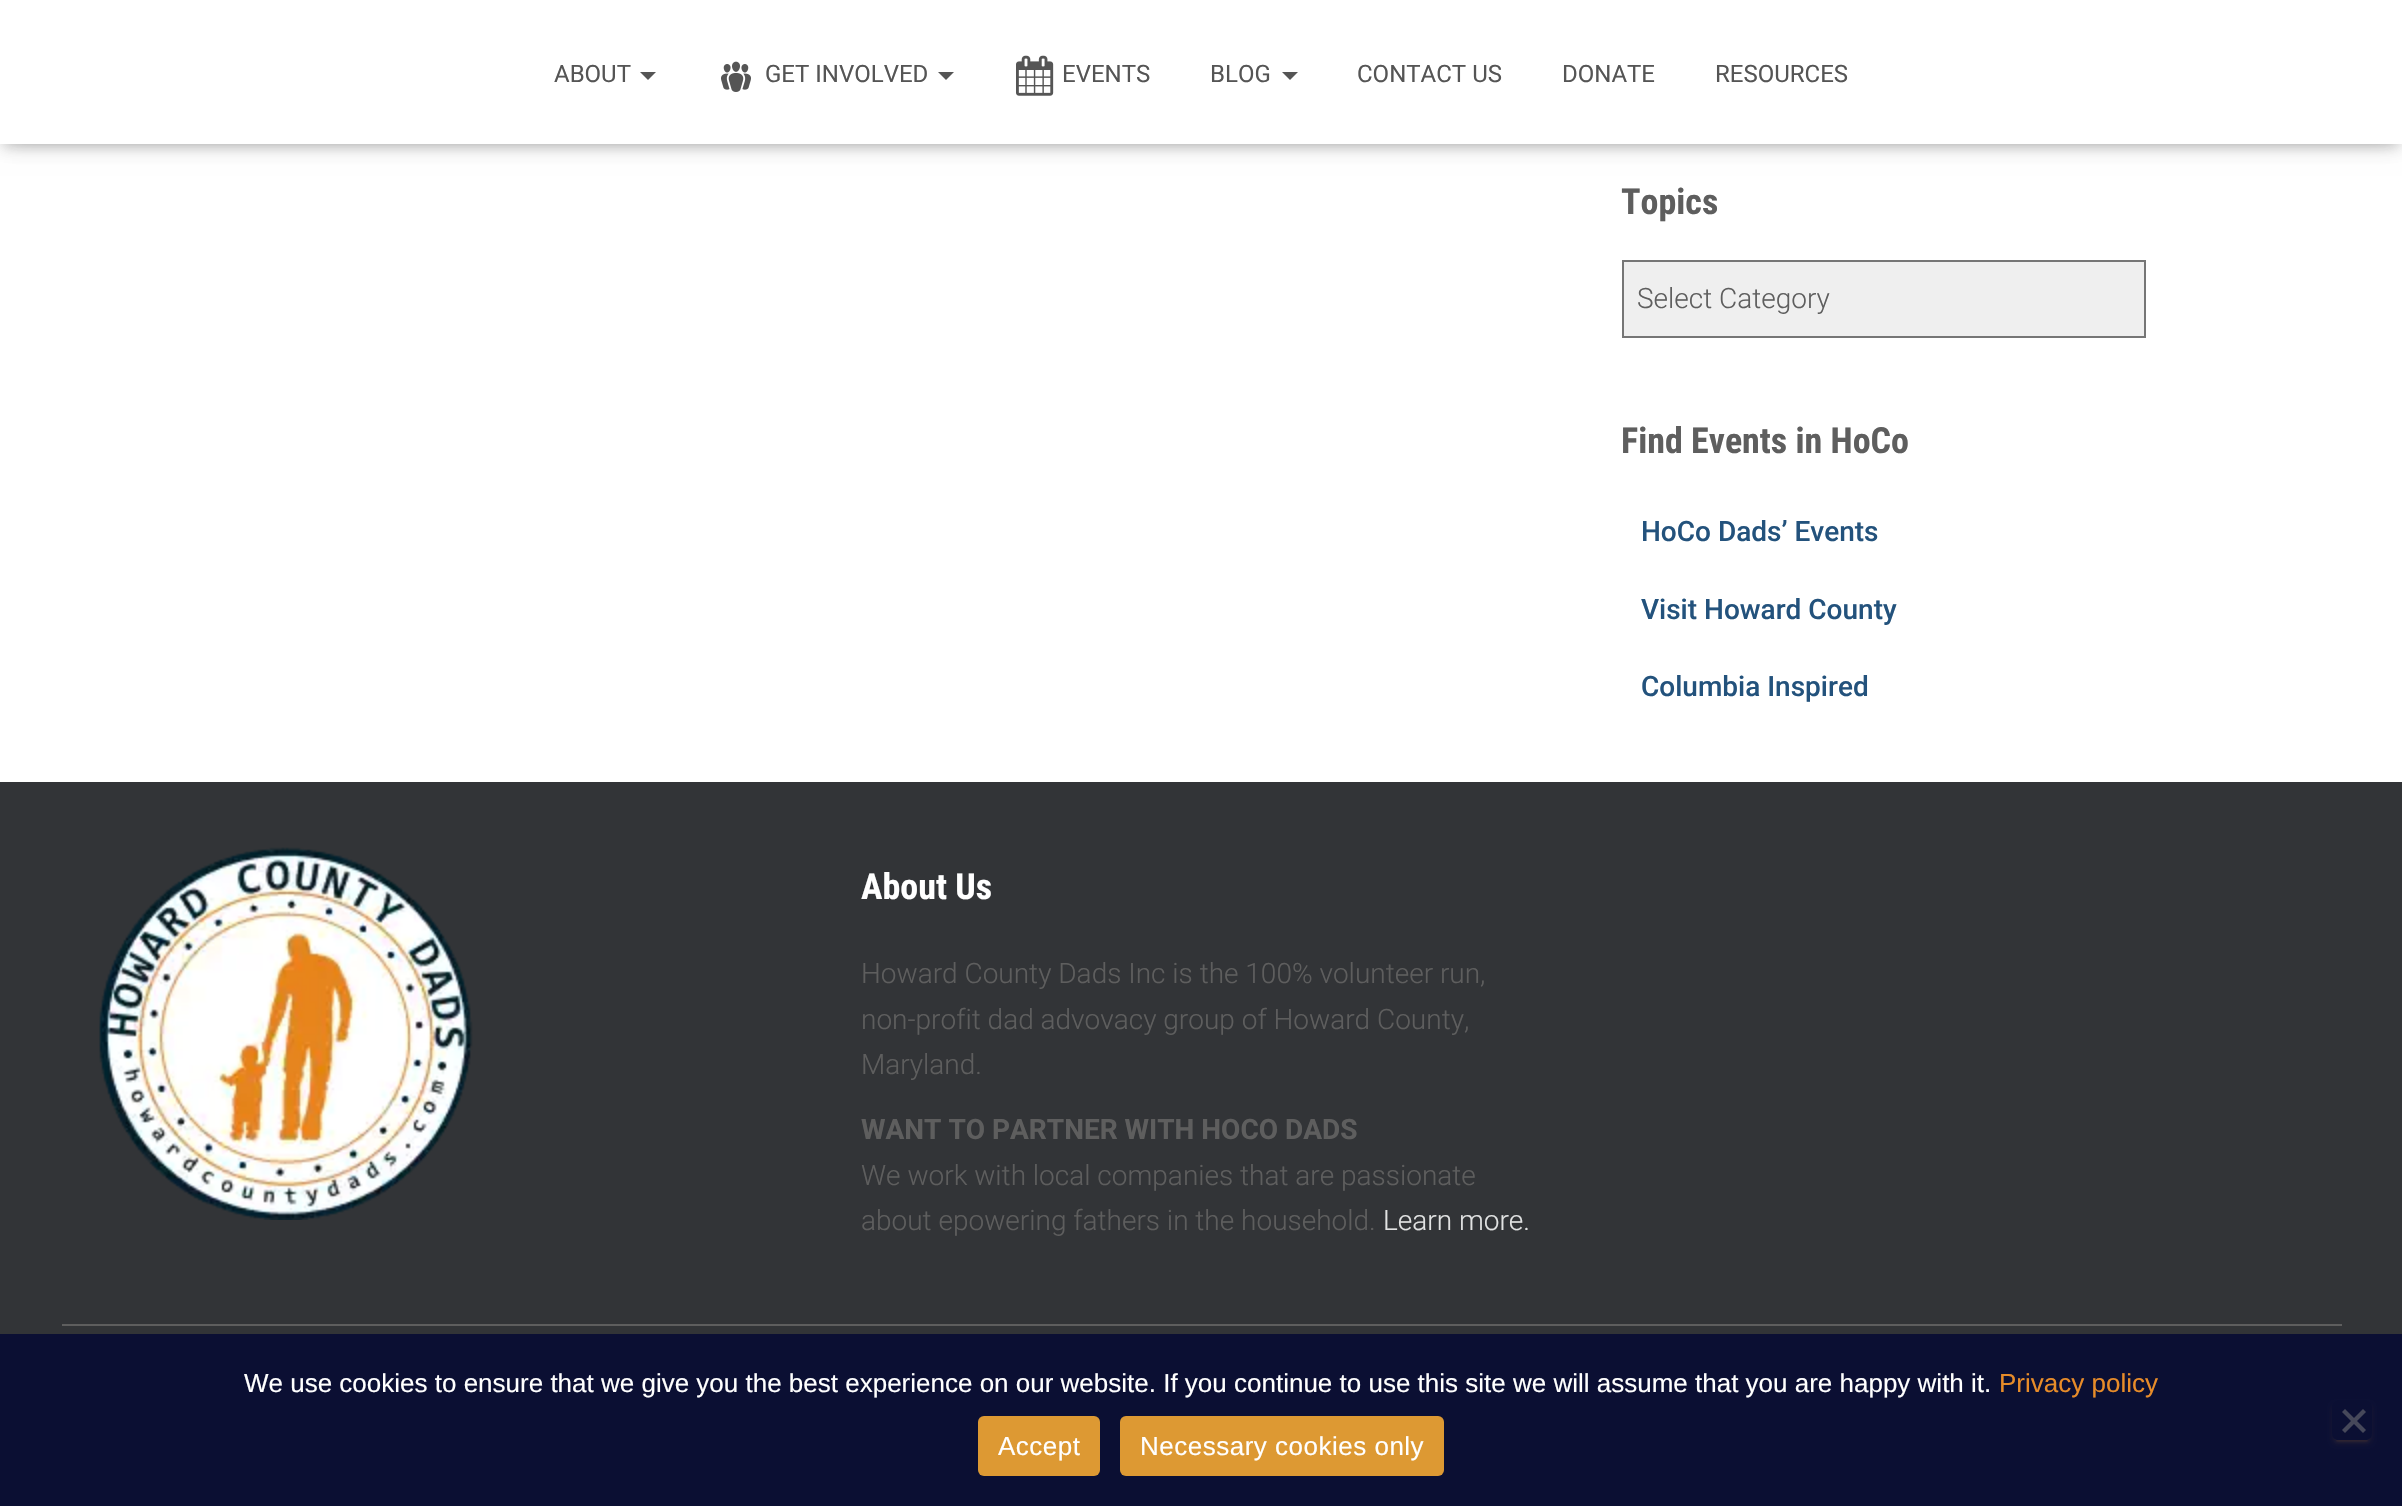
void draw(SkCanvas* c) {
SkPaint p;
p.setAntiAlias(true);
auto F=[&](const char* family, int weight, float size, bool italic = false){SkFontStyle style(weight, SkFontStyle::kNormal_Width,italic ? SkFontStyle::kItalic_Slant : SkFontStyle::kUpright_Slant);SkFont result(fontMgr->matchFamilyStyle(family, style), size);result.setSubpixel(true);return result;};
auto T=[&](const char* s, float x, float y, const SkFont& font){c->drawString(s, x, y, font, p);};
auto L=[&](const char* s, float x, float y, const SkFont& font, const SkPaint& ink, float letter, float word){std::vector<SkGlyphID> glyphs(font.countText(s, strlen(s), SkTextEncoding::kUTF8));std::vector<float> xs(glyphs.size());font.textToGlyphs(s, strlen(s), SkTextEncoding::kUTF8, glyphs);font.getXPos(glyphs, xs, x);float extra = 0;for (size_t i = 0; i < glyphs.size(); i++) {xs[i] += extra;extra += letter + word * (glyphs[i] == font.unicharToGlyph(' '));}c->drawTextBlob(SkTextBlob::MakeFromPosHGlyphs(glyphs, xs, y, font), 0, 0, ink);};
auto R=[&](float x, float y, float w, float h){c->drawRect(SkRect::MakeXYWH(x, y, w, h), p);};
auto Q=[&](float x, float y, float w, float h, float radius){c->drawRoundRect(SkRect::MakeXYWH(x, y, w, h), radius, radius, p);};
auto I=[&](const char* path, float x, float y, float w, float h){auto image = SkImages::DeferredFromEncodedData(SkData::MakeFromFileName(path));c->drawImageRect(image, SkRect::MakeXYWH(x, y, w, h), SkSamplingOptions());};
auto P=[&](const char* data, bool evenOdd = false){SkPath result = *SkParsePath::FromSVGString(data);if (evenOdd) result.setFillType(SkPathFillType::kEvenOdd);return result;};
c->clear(0xff323437);
p.setColor(0xffffffff);
R(0,144,2402,638);
p.setColor(0x1a000000);
p.setMaskFilter(SkMaskFilter::MakeBlur(kNormal_SkBlurStyle, 5));
c->drawRect(SkRect::MakeXYWH(4,12,2394,136),p);
p.setMaskFilter(nullptr);
p.setColor(0x1f000000);
p.setMaskFilter(SkMaskFilter::MakeBlur(kNormal_SkBlurStyle, 10));
c->drawRect(SkRect::MakeXYWH(0,2,2402,144),p);
p.setMaskFilter(nullptr);
p.setColor(0x6b000000);
p.setMaskFilter(SkMaskFilter::MakeBlur(kNormal_SkBlurStyle, 10));
c->drawRect(SkRect::MakeXYWH(12,14,2378,120),p);
p.setMaskFilter(nullptr);
p.setColor(0xffffffff);
R(0,0,2402,144);
auto f1 = F("Roboto",400,24);
p.setColor(0xff555555);
T("ABOUT",554,82,f1);
c->drawPath(P("M640 72h16l-8 8z"),p);
I("1.png",721,61,30,31);
T("GET INVOLVED",765,82,f1);
c->drawPath(P("M938 72h16l-8 8z"),p);
I("2.png",1016,55,38,41);
T("EVENTS",1062,82,f1);
T("BLOG",1210,82,f1);
c->drawPath(P("M1282 72h16l-8 8z"),p);
T("CONTACT US",1357,82,f1);
T("DONATE",1562,82,f1);
T("RESOURCES",1715,82,f1);
auto f2 = F("Roboto Condensed",700,36);
p.setColor(0xff5e5e5e);
T("Topics",1621,214,f2);
p.setColor(0xffefefef);
c->drawRect(SkRect::MakeXYWH(1623,261,522,76),p);
p.setStroke(true);
p.setStrokeWidth(2);
p.setColor(0xff767676);
c->drawRect(SkRect::MakeXYWH(1623,261,522,76),p);
auto f3 = F("Roboto",300,28);
p.setStroke(false);
p.setColor(0xff5e5e5e);
T("Select Category",1637,308,f3);
T("Find Events in HoCo",1621,453,f2);
auto f4 = F("Roboto",500,28);
p.setColor(0xff23527c);
T("HoCo Dads’ Events",1641,541,f4);
T("Visit Howard County",1641,619,f4);
T("Columbia Inspired",1641,696,f4);
I("3.png",99,847,374,373);
p.setColor(0xffffffff);
T("About Us",861,899,f2);
p.setColor(0xff5e5e5e);
T("Howard County Dads Inc is the 100% volunteer run,",861,983,f3);
T("non-profit dad advovacy group of Howard County,",861,1029,f3);
T("Maryland.",861,1074,f3);
auto f5 = F("Roboto",700,28);
T("WANT TO PARTNER WITH HOCO DADS",861,1139,f5);
T("We work with local companies that are passionate",861,1185,f3);
T("about epowering fathers in the household.",861,1230,f3);
p.setColor(0xffe2e3e3);
T("Learn more.",1383,1230,f3);
p.setColor(0xff5e5e5e);
R(62,1324,2280,2);
p.setColor(0xff0b0f33);
R(0,1334,2402,172);
auto f6 = F("Liberation Sans",400,26);
p.setColor(0xffffffff);
T("We use cookies to ensure that we give you the best experience on our website. If you continue to use this site we will assume that you are happy with it.",244,1392,f6);
p.setColor(0xffe88c29);
T("Privacy policy",1999,1392,f6);
p.setColor(0xffdd9933);
Q(978,1416,122,60,6);
p.setColor(0xffffffff);
L("Accept",998,1455,f6,p,.5,0);
p.setColor(0xffdd9933);
Q(1120,1416,324,60,6);
p.setColor(0xffffffff);
L("Necessary cookies only",1140,1455,f6,p,.5,0);
c->save();
c->clipPath(P("M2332 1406h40v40h-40zm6-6h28c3.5 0 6 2.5 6 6v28c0 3.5-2.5 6-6 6h-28c-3.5 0-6-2.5-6-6v-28c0-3.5 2.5-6 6-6z",true),true);
p.setColor(0x337a4e2e);
p.setMaskFilter(SkMaskFilter::MakeBlur(kNormal_SkBlurStyle, 1));
c->drawRoundRect(SkRect::MakeXYWH(2336,1410,32,32),2,2,p);
p.setMaskFilter(nullptr);
c->restore();
c->save();
c->clipPath(P("M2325 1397h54v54h-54zm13 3h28c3.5 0 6 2.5 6 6v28c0 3.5-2.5 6-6 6h-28c-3.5 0-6-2.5-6-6v-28c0-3.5 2.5-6 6-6z",true),true);
p.setColor(0x247a4e2e);
p.setMaskFilter(SkMaskFilter::MakeBlur(kNormal_SkBlurStyle, 2));
c->drawRoundRect(SkRect::MakeXYWH(2332,1404,40,40),6,6,p);
p.setMaskFilter(nullptr);
c->restore();
p.setColor(0xff46485a);
c->drawPath(P("M2363 1409l3 3l-21 21l-3-3z"),p);
c->drawPath(P("M2342 1412l3-3l21 21l-3 3z"),p);
}
